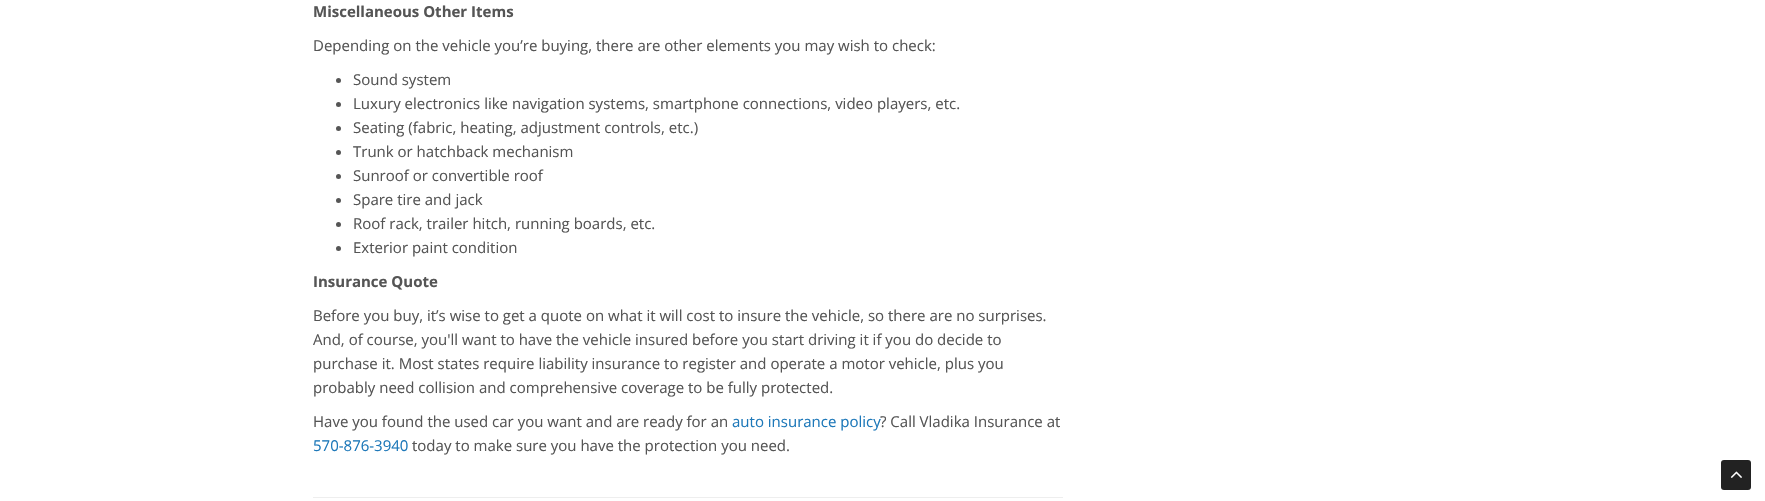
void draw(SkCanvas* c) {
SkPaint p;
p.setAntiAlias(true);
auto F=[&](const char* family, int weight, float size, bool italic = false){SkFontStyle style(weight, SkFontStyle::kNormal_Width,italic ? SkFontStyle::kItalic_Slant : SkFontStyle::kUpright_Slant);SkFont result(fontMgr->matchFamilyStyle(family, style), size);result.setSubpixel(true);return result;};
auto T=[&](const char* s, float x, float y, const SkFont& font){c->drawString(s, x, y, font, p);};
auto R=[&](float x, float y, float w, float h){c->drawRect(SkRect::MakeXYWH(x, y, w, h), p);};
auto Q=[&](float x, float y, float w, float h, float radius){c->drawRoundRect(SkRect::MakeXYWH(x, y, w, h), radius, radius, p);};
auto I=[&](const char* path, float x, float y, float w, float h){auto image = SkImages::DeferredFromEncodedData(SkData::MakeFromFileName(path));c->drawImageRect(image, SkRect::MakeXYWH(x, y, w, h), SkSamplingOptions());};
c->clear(0xffffffff);
auto f1 = F("Open Sans",700,15);
p.setColor(0xff555555);
T("Miscellaneous Other Items",313,17,f1);
auto f2 = F("Open Sans",400,15);
T("Depending on the vehicle you’re buying, there are other elements you may wish to check:",313,51,f2);
c->drawCircle(338.5,80.5,2.5,p);
T("Sound system",353,85,f2);
c->drawCircle(338.5,104.5,2.5,p);
T("Luxury electronics like navigation systems, smartphone connections, video players, etc.",353,109,f2);
c->drawCircle(338.5,128.5,2.5,p);
T("Seating (fabric, heating, adjustment controls, etc.)",353,133,f2);
c->drawCircle(338.5,152.5,2.5,p);
T("Trunk or hatchback mechanism",353,157,f2);
c->drawCircle(338.5,176.5,2.5,p);
T("Sunroof or convertible roof",353,181,f2);
c->drawCircle(338.5,200.5,2.5,p);
T("Spare tire and jack",353,205,f2);
c->drawCircle(338.5,224.5,2.5,p);
T("Roof rack, trailer hitch, running boards, etc.",353,229,f2);
c->drawCircle(338.5,248.5,2.5,p);
T("Exterior paint condition",353,253,f2);
T("Insurance Quote",313,287,f1);
T("Before you buy, it’s wise to get a quote on what it will cost to insure the vehicle, so there are no surprises.",313,321,f2);
T("And, of course, you'll want to have the vehicle insured before you start driving it if you do decide to",313,345,f2);
T("purchase it. Most states require liability insurance to register and operate a motor vehicle, plus you",313,369,f2);
T("probably need collision and comprehensive coverage to be fully protected.",313,393,f2);
T("Have you found the used car you want and are ready for an",313,427,f2);
p.setColor(0xff1d78b9);
T("auto insurance policy",732,427,f2);
p.setColor(0xff555555);
T("? Call Vladika Insurance at",880,427,f2);
p.setColor(0xff1d78b9);
T("570-876-3940",313,451,f2);
p.setColor(0xff555555);
T("today to make sure you have the protection you need.",412,451,f2);
p.setColor(0xffeeeeee);
R(313,497,750,1);
p.setColor(0xff222222);
Q(1721,460,30,30,3);
I("1.png",1730,471,12,7);
}
